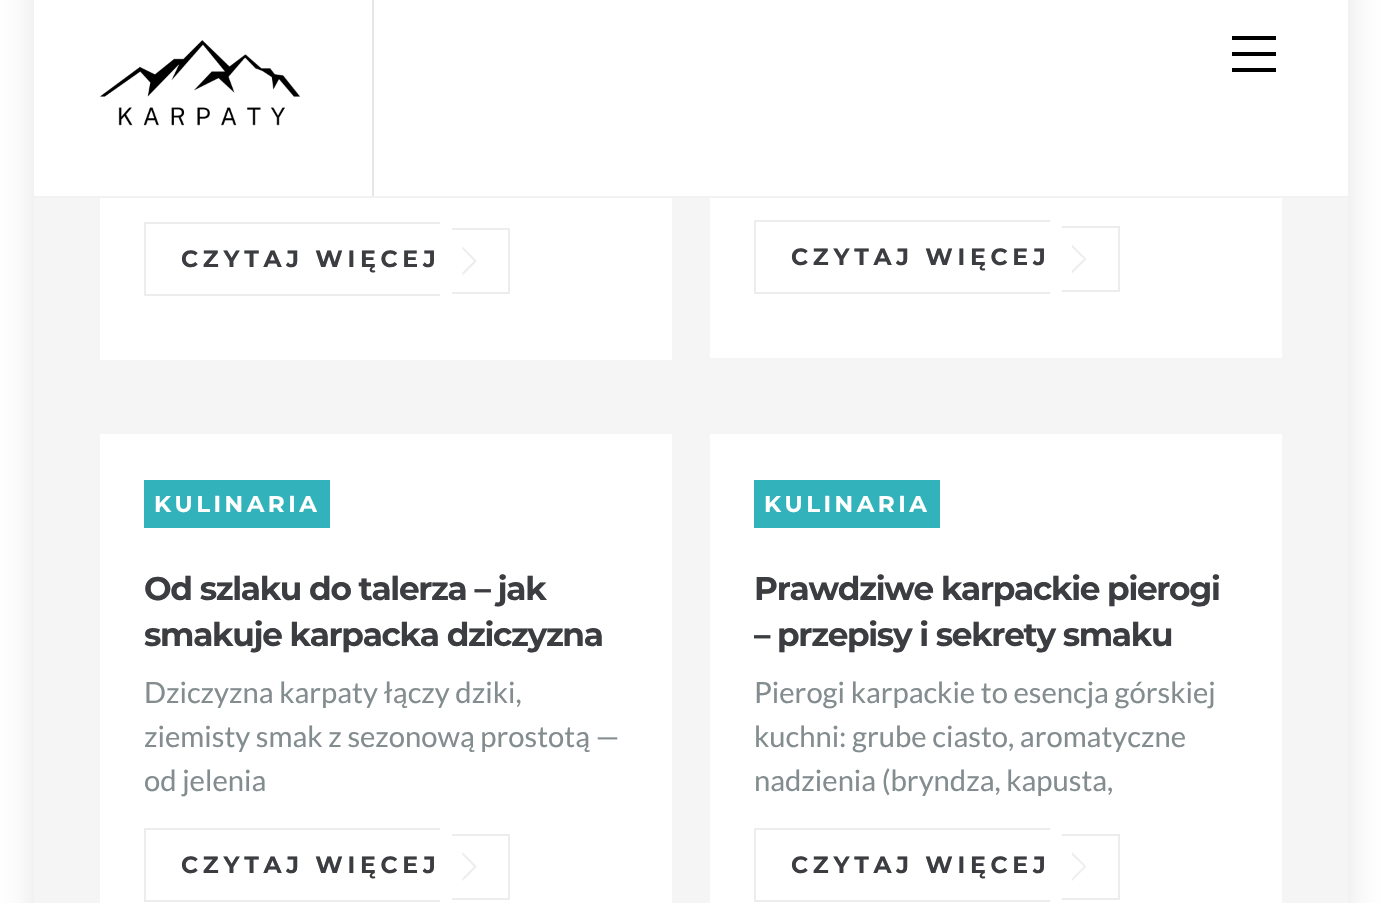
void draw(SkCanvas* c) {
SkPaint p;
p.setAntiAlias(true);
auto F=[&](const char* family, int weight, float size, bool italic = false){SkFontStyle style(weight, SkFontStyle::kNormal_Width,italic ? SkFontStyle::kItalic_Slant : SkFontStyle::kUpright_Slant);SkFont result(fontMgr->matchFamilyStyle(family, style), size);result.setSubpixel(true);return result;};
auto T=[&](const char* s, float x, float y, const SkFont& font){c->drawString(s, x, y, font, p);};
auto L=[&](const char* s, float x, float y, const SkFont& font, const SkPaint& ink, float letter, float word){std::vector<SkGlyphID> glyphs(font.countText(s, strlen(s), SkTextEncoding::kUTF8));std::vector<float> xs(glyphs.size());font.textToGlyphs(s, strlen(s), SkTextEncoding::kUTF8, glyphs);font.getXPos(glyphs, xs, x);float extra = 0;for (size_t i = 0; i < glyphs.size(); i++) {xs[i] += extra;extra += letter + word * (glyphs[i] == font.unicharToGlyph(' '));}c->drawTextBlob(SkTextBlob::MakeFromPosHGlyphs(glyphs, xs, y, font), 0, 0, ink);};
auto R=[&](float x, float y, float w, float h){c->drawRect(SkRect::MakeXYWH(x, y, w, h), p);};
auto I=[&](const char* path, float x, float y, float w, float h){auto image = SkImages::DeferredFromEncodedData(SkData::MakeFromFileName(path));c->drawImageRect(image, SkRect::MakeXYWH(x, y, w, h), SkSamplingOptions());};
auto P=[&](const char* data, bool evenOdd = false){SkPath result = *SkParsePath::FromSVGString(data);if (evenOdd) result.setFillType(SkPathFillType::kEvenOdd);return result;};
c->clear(0xffffffff);
p.setColor(0x1a000000);
p.setMaskFilter(SkMaskFilter::MakeBlur(kNormal_SkBlurStyle, 16));
c->drawRect(SkRect::MakeXYWH(34,-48,1314,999),p);
p.setMaskFilter(nullptr);
p.setColor(0xffffffff);
R(34,0,1314,196);
p.setColor(0xfff2f2f2);
R(34,196,1314,2);
p.setColor(0xffe6e6e6);
R(372,0,2,196);
I("1.png",100,40,200,86);
p.setColor(0xff000000);
R(1232,68,44,4);
R(1232,36,44,4);
R(1232,52,44,4);
p.setColor(0xfff5f5f5);
R(34,198,1314,705);
p.setColor(0xffffffff);
R(100,198,572,162);
p.setColor(0xffededed);
R(144,222,296,2);
R(144,294,296,2);
R(144,222,2,74);
R(452,228,58,2);
R(508,228,2,66);
R(452,292,58,2);
auto f1 = F("Montserrat",700,23.6);
p.setColor(0xff3c3d41);
L("CZYTAJ WIĘCEJ",181,267,f1,p,4.75,0);
p.setColor(0xffededed);
c->drawPath(P("M462.5 246.5l14.5 14.5h-3l-11.5-12zm14.5 14.5l-14.5 14.5v-3l11.5-11.5z"),p);
p.setColor(0xffffffff);
R(710,198,572,160);
p.setColor(0xffededed);
R(754,220,296,2);
R(754,292,296,2);
R(754,220,2,74);
R(1062,226,58,2);
R(1118,226,2,66);
R(1062,290,58,2);
p.setColor(0xff3c3d41);
L("CZYTAJ WIĘCEJ",791,265,f1,p,4.75,0);
p.setColor(0xffededed);
c->drawPath(P("M1072 244.5l14.5 14.5h-2.5l-12-11.5zm14.5 14.5l-14.5 14.5v-3l12-11.5z"),p);
p.setColor(0xffffffff);
R(100,434,572,469);
p.setColor(0xff32b3bb);
R(144,480,186,48);
auto f2 = F("Montserrat",700,23);
p.setColor(0xffffffff);
L("KULINARIA",154,512,f2,p,3.5,0);
auto f3 = F("Montserrat",700,32.75);
p.setColor(0xff3c3d41);
L("Od szlaku do talerza – jak",144,600,f3,p,-1.3,0);
L("smakuje karpacka dziczyzna",144,646,f3,p,-1.3,0);
auto f4 = F("Lato",400,29.2);
p.setColor(0xff838c8e);
T("Dziczyzna karpaty łączy dziki,",144,703,f4);
T("ziemisty smak z sezonową prostotą —",144,747,f4);
T("od jelenia",144,791,f4);
p.setColor(0xffededed);
R(144,828,296,2);
R(144,900,296,2);
R(144,828,2,74);
R(452,834,58,2);
R(508,834,2,66);
R(452,898,58,2);
p.setColor(0xff3c3d41);
L("CZYTAJ WIĘCEJ",181,873,f1,p,4.75,0);
p.setColor(0xffededed);
c->drawPath(P("M462.5 852l14.5 14.5h-3l-11.5-11.5z"),p);
c->drawPath(P("M477 866.5l-14.5 14.5v-2.5l11.5-12z"),p);
p.setColor(0xffffffff);
R(710,434,572,469);
p.setColor(0xff32b3bb);
R(754,480,186,48);
p.setColor(0xffffffff);
L("KULINARIA",764,512,f2,p,3.5,0);
p.setColor(0xff3c3d41);
L("Prawdziwe karpackie pierogi",754,600,f3,p,-1.3,0);
L("– przepisy i sekrety smaku",754,646,f3,p,-1.3,0);
p.setColor(0xff838c8e);
T("Pierogi karpackie to esencja górskiej",754,703,f4);
T("kuchni: grube ciasto, aromatyczne",754,747,f4);
T("nadzienia (bryndza, kapusta,",754,791,f4);
p.setColor(0xffededed);
R(754,828,296,2);
R(754,900,296,2);
R(754,828,2,74);
R(1062,834,58,2);
R(1118,834,2,66);
R(1062,898,58,2);
p.setColor(0xff3c3d41);
L("CZYTAJ WIĘCEJ",791,873,f1,p,4.75,0);
p.setColor(0xffededed);
c->drawPath(P("M1072 852l14.5 14.5h-2.5l-12-11.5z"),p);
c->drawPath(P("M1086.5 866.5l-14.5 14.5v-2.5l12-12z"),p);
}
